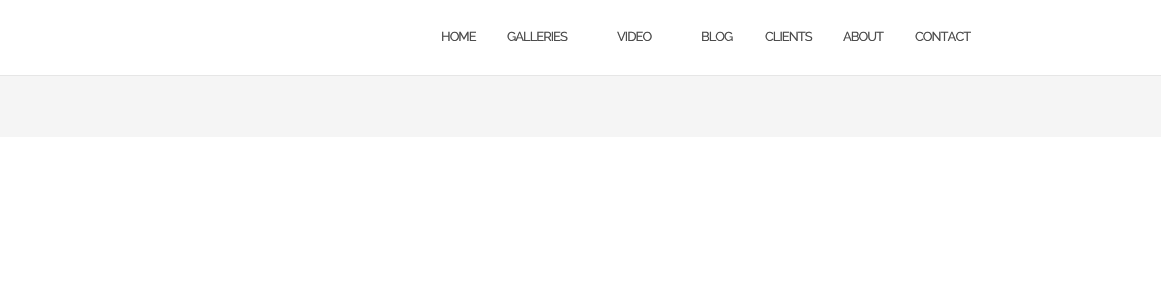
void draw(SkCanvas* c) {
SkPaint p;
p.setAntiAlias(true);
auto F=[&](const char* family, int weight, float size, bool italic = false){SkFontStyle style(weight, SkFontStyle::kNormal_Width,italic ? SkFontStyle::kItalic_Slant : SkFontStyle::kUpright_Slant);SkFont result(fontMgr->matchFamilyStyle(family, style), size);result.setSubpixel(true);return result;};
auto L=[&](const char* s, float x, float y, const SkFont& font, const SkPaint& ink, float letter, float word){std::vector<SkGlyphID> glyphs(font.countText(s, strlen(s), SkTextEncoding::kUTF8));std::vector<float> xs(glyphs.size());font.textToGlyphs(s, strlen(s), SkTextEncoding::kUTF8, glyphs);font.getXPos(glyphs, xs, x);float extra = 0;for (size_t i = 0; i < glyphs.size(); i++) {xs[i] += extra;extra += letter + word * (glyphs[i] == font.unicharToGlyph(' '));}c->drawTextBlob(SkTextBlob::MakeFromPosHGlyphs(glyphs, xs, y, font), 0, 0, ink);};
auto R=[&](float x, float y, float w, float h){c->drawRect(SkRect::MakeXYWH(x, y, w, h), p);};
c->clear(0xffffffff);
p.setColor(0xffe6e6e6);
R(0,75,1161,1);
auto f1 = F("Raleway",500,13);
p.setColor(0xff4c4c4c);
L("HOME",441,41,f1,p,-1,0);
L("GALLERIES",507,41,f1,p,-1,0);
L("VIDEO",617,41,f1,p,-1,0);
L("BLOG",701,41,f1,p,-1,0);
L("CLIENTS",765,41,f1,p,-1,0);
L("ABOUT",843,41,f1,p,-1,0);
L("CONTACT",915,41,f1,p,-1,0);
p.setColor(0xfff5f5f5);
R(0,76,1161,61);
}
